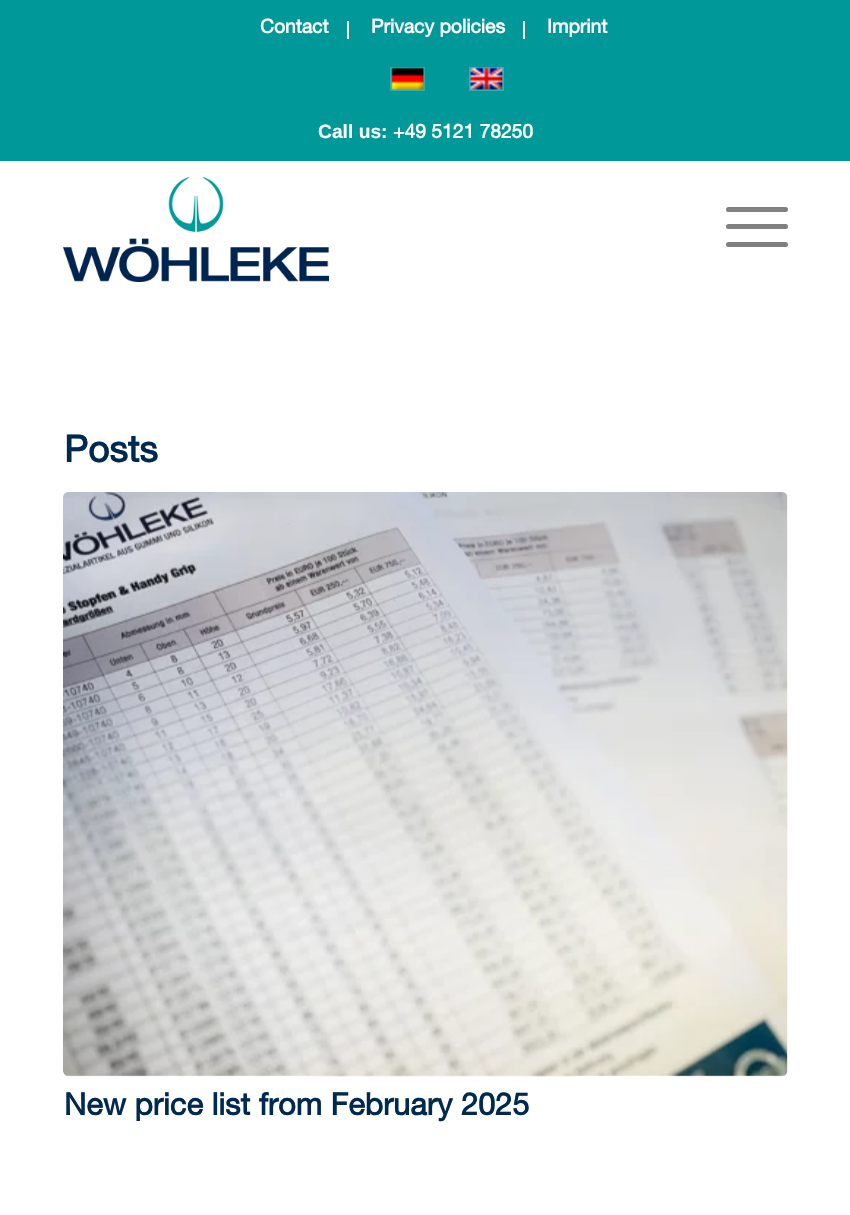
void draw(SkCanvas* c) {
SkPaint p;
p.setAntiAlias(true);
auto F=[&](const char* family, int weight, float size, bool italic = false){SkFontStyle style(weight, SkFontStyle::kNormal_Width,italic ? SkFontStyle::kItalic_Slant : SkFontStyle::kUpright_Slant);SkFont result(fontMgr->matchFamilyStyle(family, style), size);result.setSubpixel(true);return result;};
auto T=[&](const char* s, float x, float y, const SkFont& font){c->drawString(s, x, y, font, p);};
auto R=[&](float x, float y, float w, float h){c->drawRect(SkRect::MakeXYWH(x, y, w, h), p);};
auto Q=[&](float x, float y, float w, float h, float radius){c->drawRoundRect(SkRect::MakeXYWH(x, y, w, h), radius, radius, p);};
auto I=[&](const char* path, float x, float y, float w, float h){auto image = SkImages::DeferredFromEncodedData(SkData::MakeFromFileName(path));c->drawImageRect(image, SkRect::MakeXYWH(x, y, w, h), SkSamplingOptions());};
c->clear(0xffffffff);
p.setColor(0xff009898);
R(0,0,850,161);
p.setColor(0xffffffff);
R(347,21,2,18);
auto f1 = F("Helvetica Neue",700,19.25);
T("Contact",260,33,f1);
R(523,21,2,18);
T("Privacy policies",371,33,f1);
T("Imprint",547,33,f1);
p.setStroke(true);
p.setStrokeWidth(2);
p.setColor(0xff33adad);
c->drawRect(SkRect::MakeXYWH(391,68,33,22),p);
I("1.png",391,67,34,23);
c->drawRect(SkRect::MakeXYWH(470,68,33,22),p);
I("2.png",470,67,33,23);
auto f2 = F("Liberation Sans",700,19.25);
p.setStroke(false);
p.setColor(0xffffffff);
T("Call us:",318,138,f2);
T("+49 5121 78250",393,138,f1);
I("3.png",63,177,266,105);
p.setColor(0xff808080);
Q(726,224,62,5,2.5);
Q(726,207,62,5,2.5);
Q(726,242,62,5,2.5);
auto f3 = F("Helvetica Neue",700,37);
p.setColor(0xff002951);
T("Posts",64,462,f3);
p.setColor(0xfffcfcfc);
Q(63,492,725,584,5);
I("4.png",63,492,725,585);
auto f4 = F("Helvetica Neue",700,30.75);
p.setColor(0xff002951);
T("New price list from February 2025",64,1115,f4);
}
